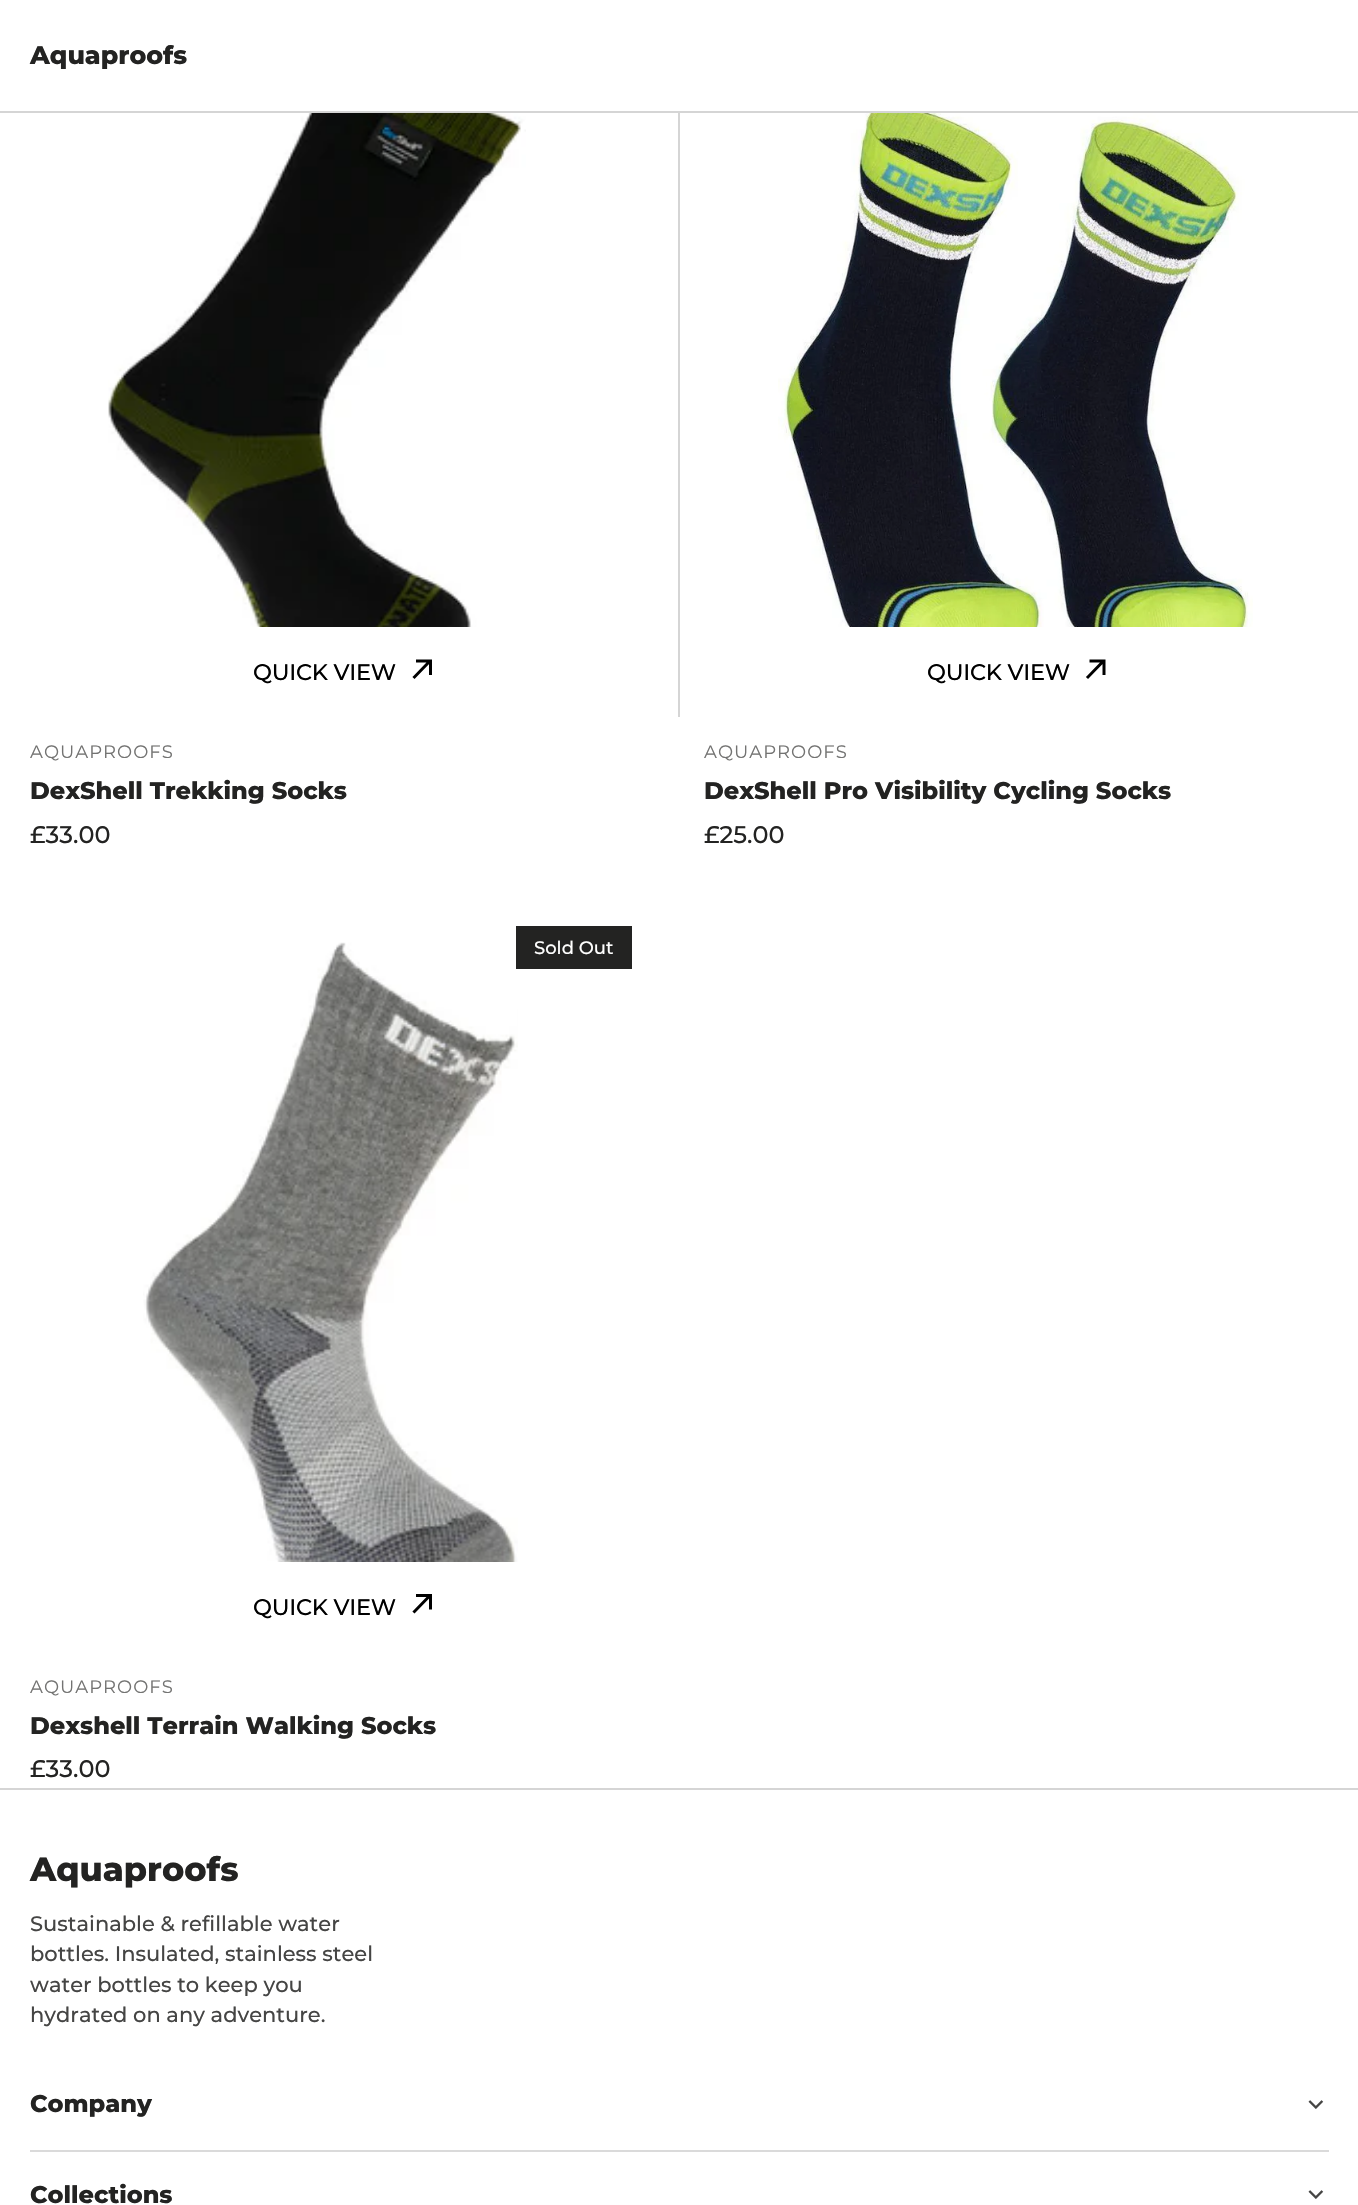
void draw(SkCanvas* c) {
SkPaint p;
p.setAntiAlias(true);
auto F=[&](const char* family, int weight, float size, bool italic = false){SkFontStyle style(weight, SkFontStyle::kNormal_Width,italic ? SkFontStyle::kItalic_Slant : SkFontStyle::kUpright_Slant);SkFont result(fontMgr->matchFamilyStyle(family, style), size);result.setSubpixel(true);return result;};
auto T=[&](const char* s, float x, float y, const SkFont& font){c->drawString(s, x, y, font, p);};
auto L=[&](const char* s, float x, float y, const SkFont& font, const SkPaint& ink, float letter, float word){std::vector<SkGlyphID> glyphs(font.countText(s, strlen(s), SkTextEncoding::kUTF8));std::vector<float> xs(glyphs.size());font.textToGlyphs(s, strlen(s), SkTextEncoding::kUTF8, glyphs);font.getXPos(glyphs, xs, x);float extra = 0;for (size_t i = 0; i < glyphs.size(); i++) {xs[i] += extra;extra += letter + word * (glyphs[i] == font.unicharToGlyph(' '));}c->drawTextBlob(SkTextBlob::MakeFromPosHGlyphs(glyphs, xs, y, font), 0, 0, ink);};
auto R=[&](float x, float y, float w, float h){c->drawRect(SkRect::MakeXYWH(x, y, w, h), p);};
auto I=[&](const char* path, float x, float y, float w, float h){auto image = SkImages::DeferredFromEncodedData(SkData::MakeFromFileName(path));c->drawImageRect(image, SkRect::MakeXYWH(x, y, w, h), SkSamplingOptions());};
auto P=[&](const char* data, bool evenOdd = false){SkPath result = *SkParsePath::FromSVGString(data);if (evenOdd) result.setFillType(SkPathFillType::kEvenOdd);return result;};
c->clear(0xffffffff);
p.setColor(0xffd5d5d5);
R(0,111,1358,2);
auto f1 = F("Montserrat",800,25.25);
p.setColor(0xff232322);
T("Aquaproofs",30,64,f1);
I("1.png",108,113,418,514);
p.setColor(0xffd5d5d5);
R(678,113,2,604);
auto f2 = F("Montserrat",500,22.5);
p.setColor(0xff000000);
L("QUICK VIEW",253,680,f2,p,-.25,0);
p.setStroke(true);
p.setStrokeWidth(3);
p.setStrokeCap(SkPaint::kSquare_Cap);
c->drawPath(P("M414.5 677l14.5-15m-11.5-1h13v12.5"),p);
auto f3 = F("Montserrat",400,18);
p.setStroke(false);
p.setColor(0xff737372);
L("AQUAPROOFS",30,758,f3,p,1,0);
auto f4 = F("Montserrat",800,24);
p.setColor(0xff232322);
T("DexShell Trekking Socks",30,799,f4);
auto f5 = F("Montserrat",500,24);
T("£33.00",30,843,f5);
I("2.png",778,113,475,514);
p.setColor(0xff000000);
L("QUICK VIEW",927,680,f2,p,-.25,0);
p.setStroke(true);
c->drawPath(P("M1088 677l14.5-15m-11.5-1h13v12.5"),p);
p.setStroke(false);
p.setColor(0xff737372);
L("AQUAPROOFS",704,758,f3,p,1,0);
p.setColor(0xff232322);
T("DexShell Pro Visibility Cycling Socks",704,799,f4);
T("£25.00",704,843,f5);
I("3.png",143,942,375,620);
R(516,926,116,43);
auto f6 = F("Montserrat",500,18);
p.setColor(0xffffffff);
T("Sold Out",534,954,f6);
p.setColor(0xff000000);
L("QUICK VIEW",253,1615,f2,p,-.25,0);
p.setStroke(true);
c->drawPath(P("M414.5 1611.5l14.5-15m-11.5-1h13v12.5"),p);
p.setStroke(false);
p.setColor(0xff737372);
L("AQUAPROOFS",30,1693,f3,p,1,0);
p.setColor(0xff232322);
T("Dexshell Terrain Walking Socks",30,1734,f4);
T("£33.00",30,1777,f5);
p.setColor(0xffd5d5d5);
R(0,1788,1358,2);
auto f7 = F("Montserrat",800,33.5);
p.setColor(0xff232322);
T("Aquaproofs",30,1881,f7);
auto f8 = F("Montserrat",500,21);
p.setColor(0xff454544);
T("Sustainable & refillable water",30,1931,f8);
T("bottles. Insulated, stainless steel",30,1961,f8);
T("water bottles to keep you",30,1992,f8);
T("hydrated on any adventure.",30,2022,f8);
p.setColor(0xffdadada);
R(30,2150,1299,2);
p.setColor(0xff232322);
T("Company",30,2112,f4);
I("4.png",1308,2100,16,9);
T("Collections",30,2203,f4);
I("4.png",1308,2190,16,9);
}
